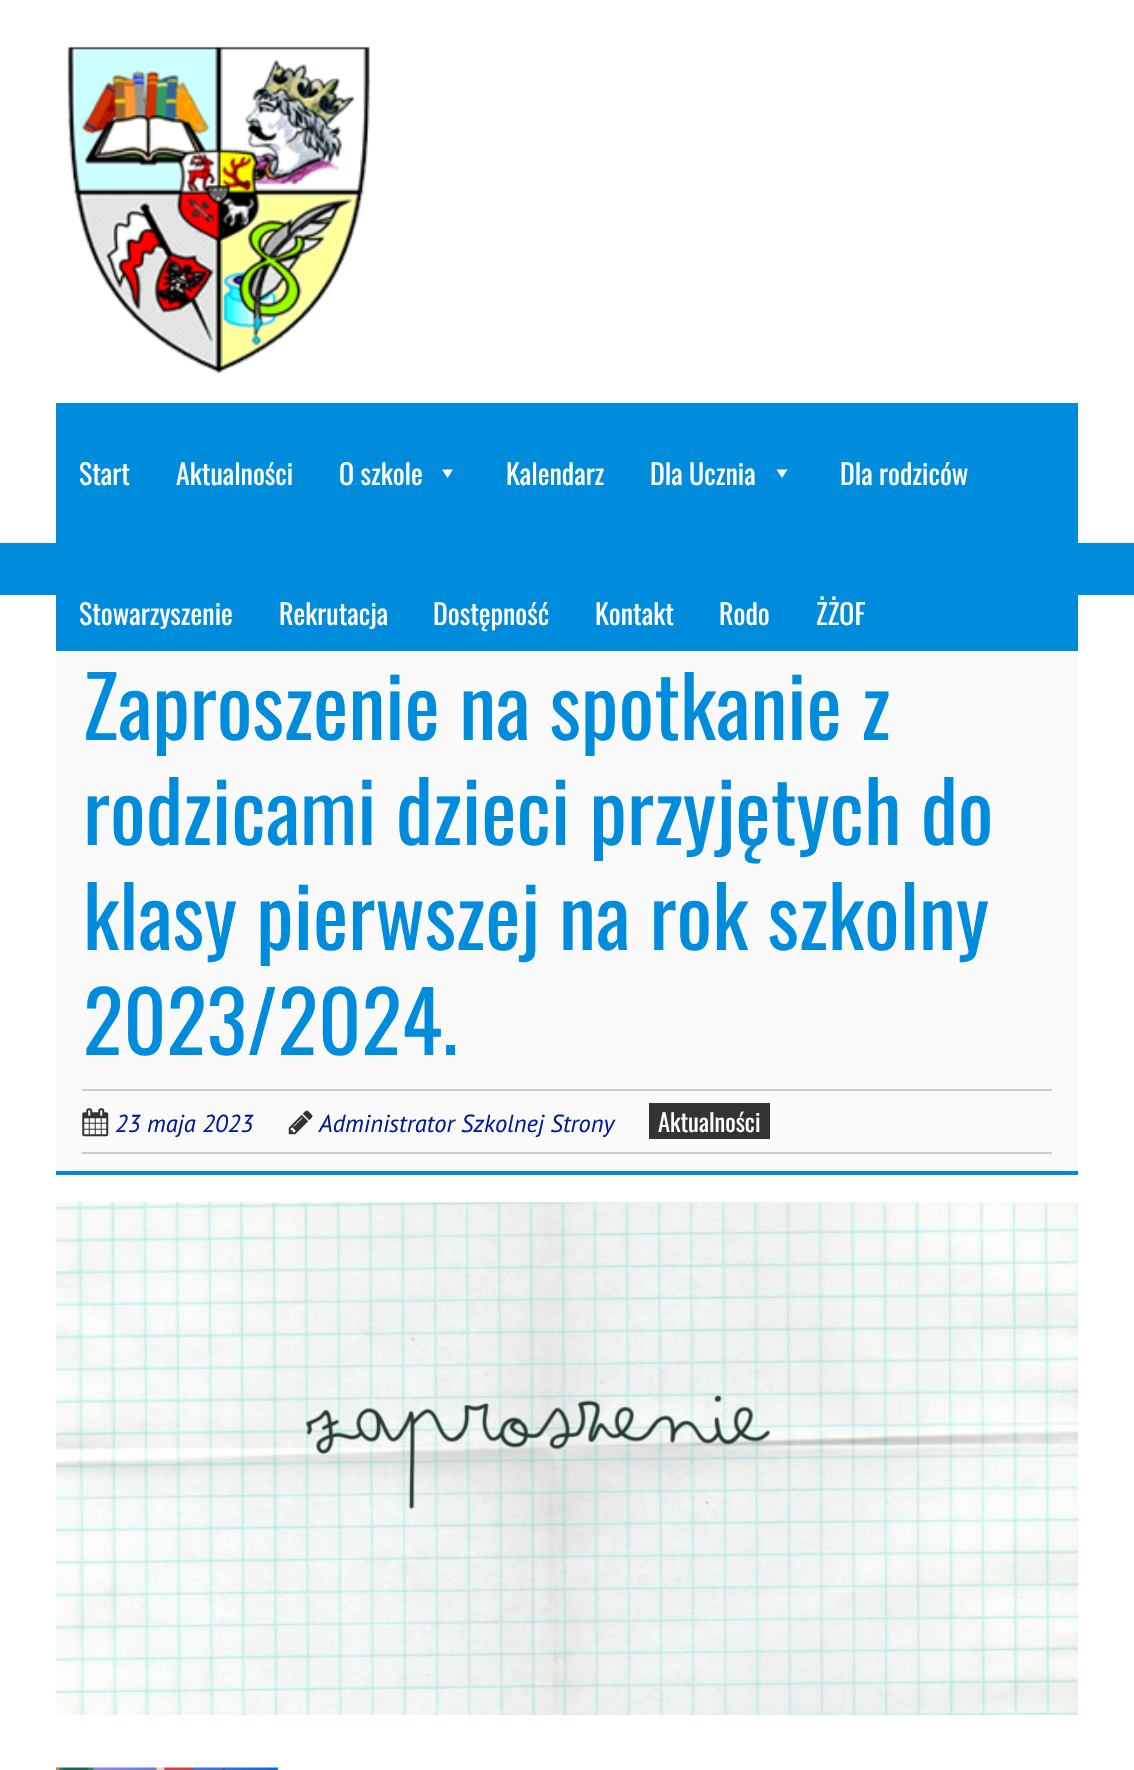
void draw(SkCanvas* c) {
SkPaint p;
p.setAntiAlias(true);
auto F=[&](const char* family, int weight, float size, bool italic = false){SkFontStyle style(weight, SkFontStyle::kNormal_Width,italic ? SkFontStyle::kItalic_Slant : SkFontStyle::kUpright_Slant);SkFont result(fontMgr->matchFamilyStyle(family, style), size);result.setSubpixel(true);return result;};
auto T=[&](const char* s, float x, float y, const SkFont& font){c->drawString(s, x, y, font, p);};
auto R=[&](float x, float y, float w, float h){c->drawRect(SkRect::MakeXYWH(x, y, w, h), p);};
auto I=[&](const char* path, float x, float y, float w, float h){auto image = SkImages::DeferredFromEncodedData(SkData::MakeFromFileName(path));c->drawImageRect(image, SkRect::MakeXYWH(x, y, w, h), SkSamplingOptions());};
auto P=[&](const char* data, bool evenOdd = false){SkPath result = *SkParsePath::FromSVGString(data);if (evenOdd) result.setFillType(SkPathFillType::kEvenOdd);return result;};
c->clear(0xffffffff);
I("1.png",67,46,303,328);
p.setColor(0xff008cdd);
R(0,543,1134,52);
R(56,403,1022,248);
auto f1 = F("Oswald",400,28);
p.setColor(0xffffffff);
T("Start",79,485,f1);
T("Aktualności",176,485,f1);
T("O szkole",339,485,f1);
c->drawPath(P("M453 469.5l-5.5 8.5l-5.5-8.5z"),p);
T("Kalendarz",506,485,f1);
T("Dla Ucznia",650,485,f1);
c->drawPath(P("M787.5 469.5l-5.5 8.5l-5.5-8.5z"),p);
T("Dla rodziców",840,485,f1);
T("Stowarzyszenie",79,625,f1);
T("Rekrutacja",279,625,f1);
T("Dostępność",433,625,f1);
T("Kontakt",595,625,f1);
T("Rodo",719,625,f1);
T("ŻŻOF",816,625,f1);
p.setColor(0xfffafafa);
R(56,651,1022,520);
p.setColor(0xff008cdd);
R(56,1171,1022,4);
auto f2 = F("Oswald",400,84);
T("Zaproszenie na spotkanie z",83,740,f2);
T("rodzicami dzieci przyjętych do",83,845,f2);
T("klasy pierwszej na rok szkolny",83,950,f2);
T("2023/2024.",83,1055,f2);
p.setColor(0xffcccccc);
R(82,1089,970,2);
R(82,1152,970,2);
I("2.png",82,1108,27,29);
auto f3 = F("PT Sans",400,24.5,true);
p.setColor(0xff00199a);
T("23 maja 2023",115,1132,f3);
I("3.png",288,1110,25,25);
T("Administrator Szkolnej Strony",319,1132,f3);
p.setColor(0xff333333);
R(649,1103,121,36);
auto f4 = F("Oswald",400,24.5);
p.setColor(0xffffffff);
T("Aktualności",658,1132,f4);
I("4.png",56,1202,1022,513);
I("5.png",56,1767,226,3);
}
